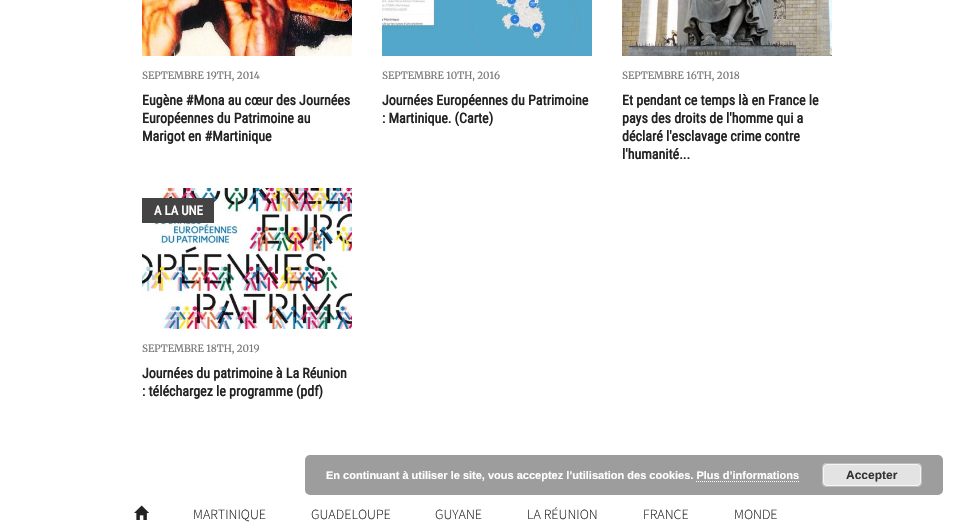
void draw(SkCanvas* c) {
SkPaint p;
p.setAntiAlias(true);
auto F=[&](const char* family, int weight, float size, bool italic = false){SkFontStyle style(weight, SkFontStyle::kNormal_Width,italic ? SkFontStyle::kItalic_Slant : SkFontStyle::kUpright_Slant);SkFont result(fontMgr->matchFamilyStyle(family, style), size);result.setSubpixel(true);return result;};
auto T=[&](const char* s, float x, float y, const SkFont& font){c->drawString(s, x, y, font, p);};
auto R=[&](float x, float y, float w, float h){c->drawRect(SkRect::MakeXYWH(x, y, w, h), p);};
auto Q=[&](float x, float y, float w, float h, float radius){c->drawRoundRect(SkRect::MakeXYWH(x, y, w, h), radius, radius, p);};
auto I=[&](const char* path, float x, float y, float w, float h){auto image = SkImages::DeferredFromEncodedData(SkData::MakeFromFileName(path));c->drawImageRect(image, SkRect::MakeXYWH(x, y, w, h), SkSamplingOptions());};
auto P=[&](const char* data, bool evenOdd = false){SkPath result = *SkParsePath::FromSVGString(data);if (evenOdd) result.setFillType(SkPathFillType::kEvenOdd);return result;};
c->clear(0xffffffff);
I("1.png",142,0,210,56);
auto f1 = F("Merriweather",300,10);
p.setColor(0xff777777);
T("SEPTEMBRE 19TH, 2014",142,79,f1);
auto f2 = F("Roboto Condensed",700,14);
p.setColor(0xff222222);
T("Eugène #Mona au cœur des Journées",142,105,f2);
T("Européennes du Patrimoine au",142,123,f2);
T("Marigot en #Martinique",142,141,f2);
I("2.png",382,0,210,56);
p.setColor(0xff777777);
T("SEPTEMBRE 10TH, 2016",382,79,f1);
p.setColor(0xff222222);
T("Journées Européennes du Patrimoine",382,105,f2);
T(": Martinique. (Carte)",382,123,f2);
I("3.png",622,0,210,56);
p.setColor(0xff777777);
T("SEPTEMBRE 16TH, 2018",622,79,f1);
p.setColor(0xff222222);
T("Et pendant ce temps là en France le",622,105,f2);
T("pays des droits de l'homme qui a",622,123,f2);
T("déclaré l'esclavage crime contre",622,141,f2);
T("l'humanité...",622,159,f2);
I("4.png",142,188,210,141);
p.setColor(0xff444444);
R(142,198,72,25);
auto f3 = F("Roboto Condensed",700,13);
p.setColor(0xffffffff);
T("A LA UNE",154,215,f3);
p.setColor(0xff777777);
T("SEPTEMBRE 18TH, 2019",142,352,f1);
p.setColor(0xff222222);
T("Journées du patrimoine à La Réunion",142,378,f2);
T(": téléchargez le programme (pdf)",142,396,f2);
I("5.png",134,505,15,15);
auto f4 = F("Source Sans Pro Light",300,14);
T("MARTINIQUE",193,519,f4);
T("GUADELOUPE",311,519,f4);
T("GUYANE",435,519,f4);
T("LA RÉUNION",527,519,f4);
T("FRANCE",643,519,f4);
T("MONDE",734,519,f4);
p.setColor(0xff9d9d9d);
Q(305,455,638,40,5);
auto f5 = F("Liberation Sans",700,11);
p.setColor(0xffffffff);
T("En continuant à utiliser le site, vous acceptez l’utilisation des cookies. Plus d’informations",326,479,f5);
p.setColor(0xffe3e3e3);
Q(822,463,100,24,5);
p.setStroke(true);
p.setStrokeWidth(1);
p.setColor(0xfff6f6f6);
c->drawRoundRect(SkRect::MakeXYWH(823.5,464.5,97,21),3.5,3.5,p);
p.setColor(0xffbbbbbb);
c->drawRoundRect(SkRect::MakeXYWH(822.5,463.5,99,23),4.5,4.5,p);
auto f6 = F("Liberation Sans",700,12);
p.setStroke(false);
p.setColor(0xff333333);
T("Accepter",846,479,f6);
p.setStroke(true);
p.setColor(0xffffffff);
p.setPathEffect(SkDashPathEffect::Make({{1,1}}, 0));
c->drawPath(P("M696 481.5h103"),p);
p.setPathEffect(nullptr);
}
